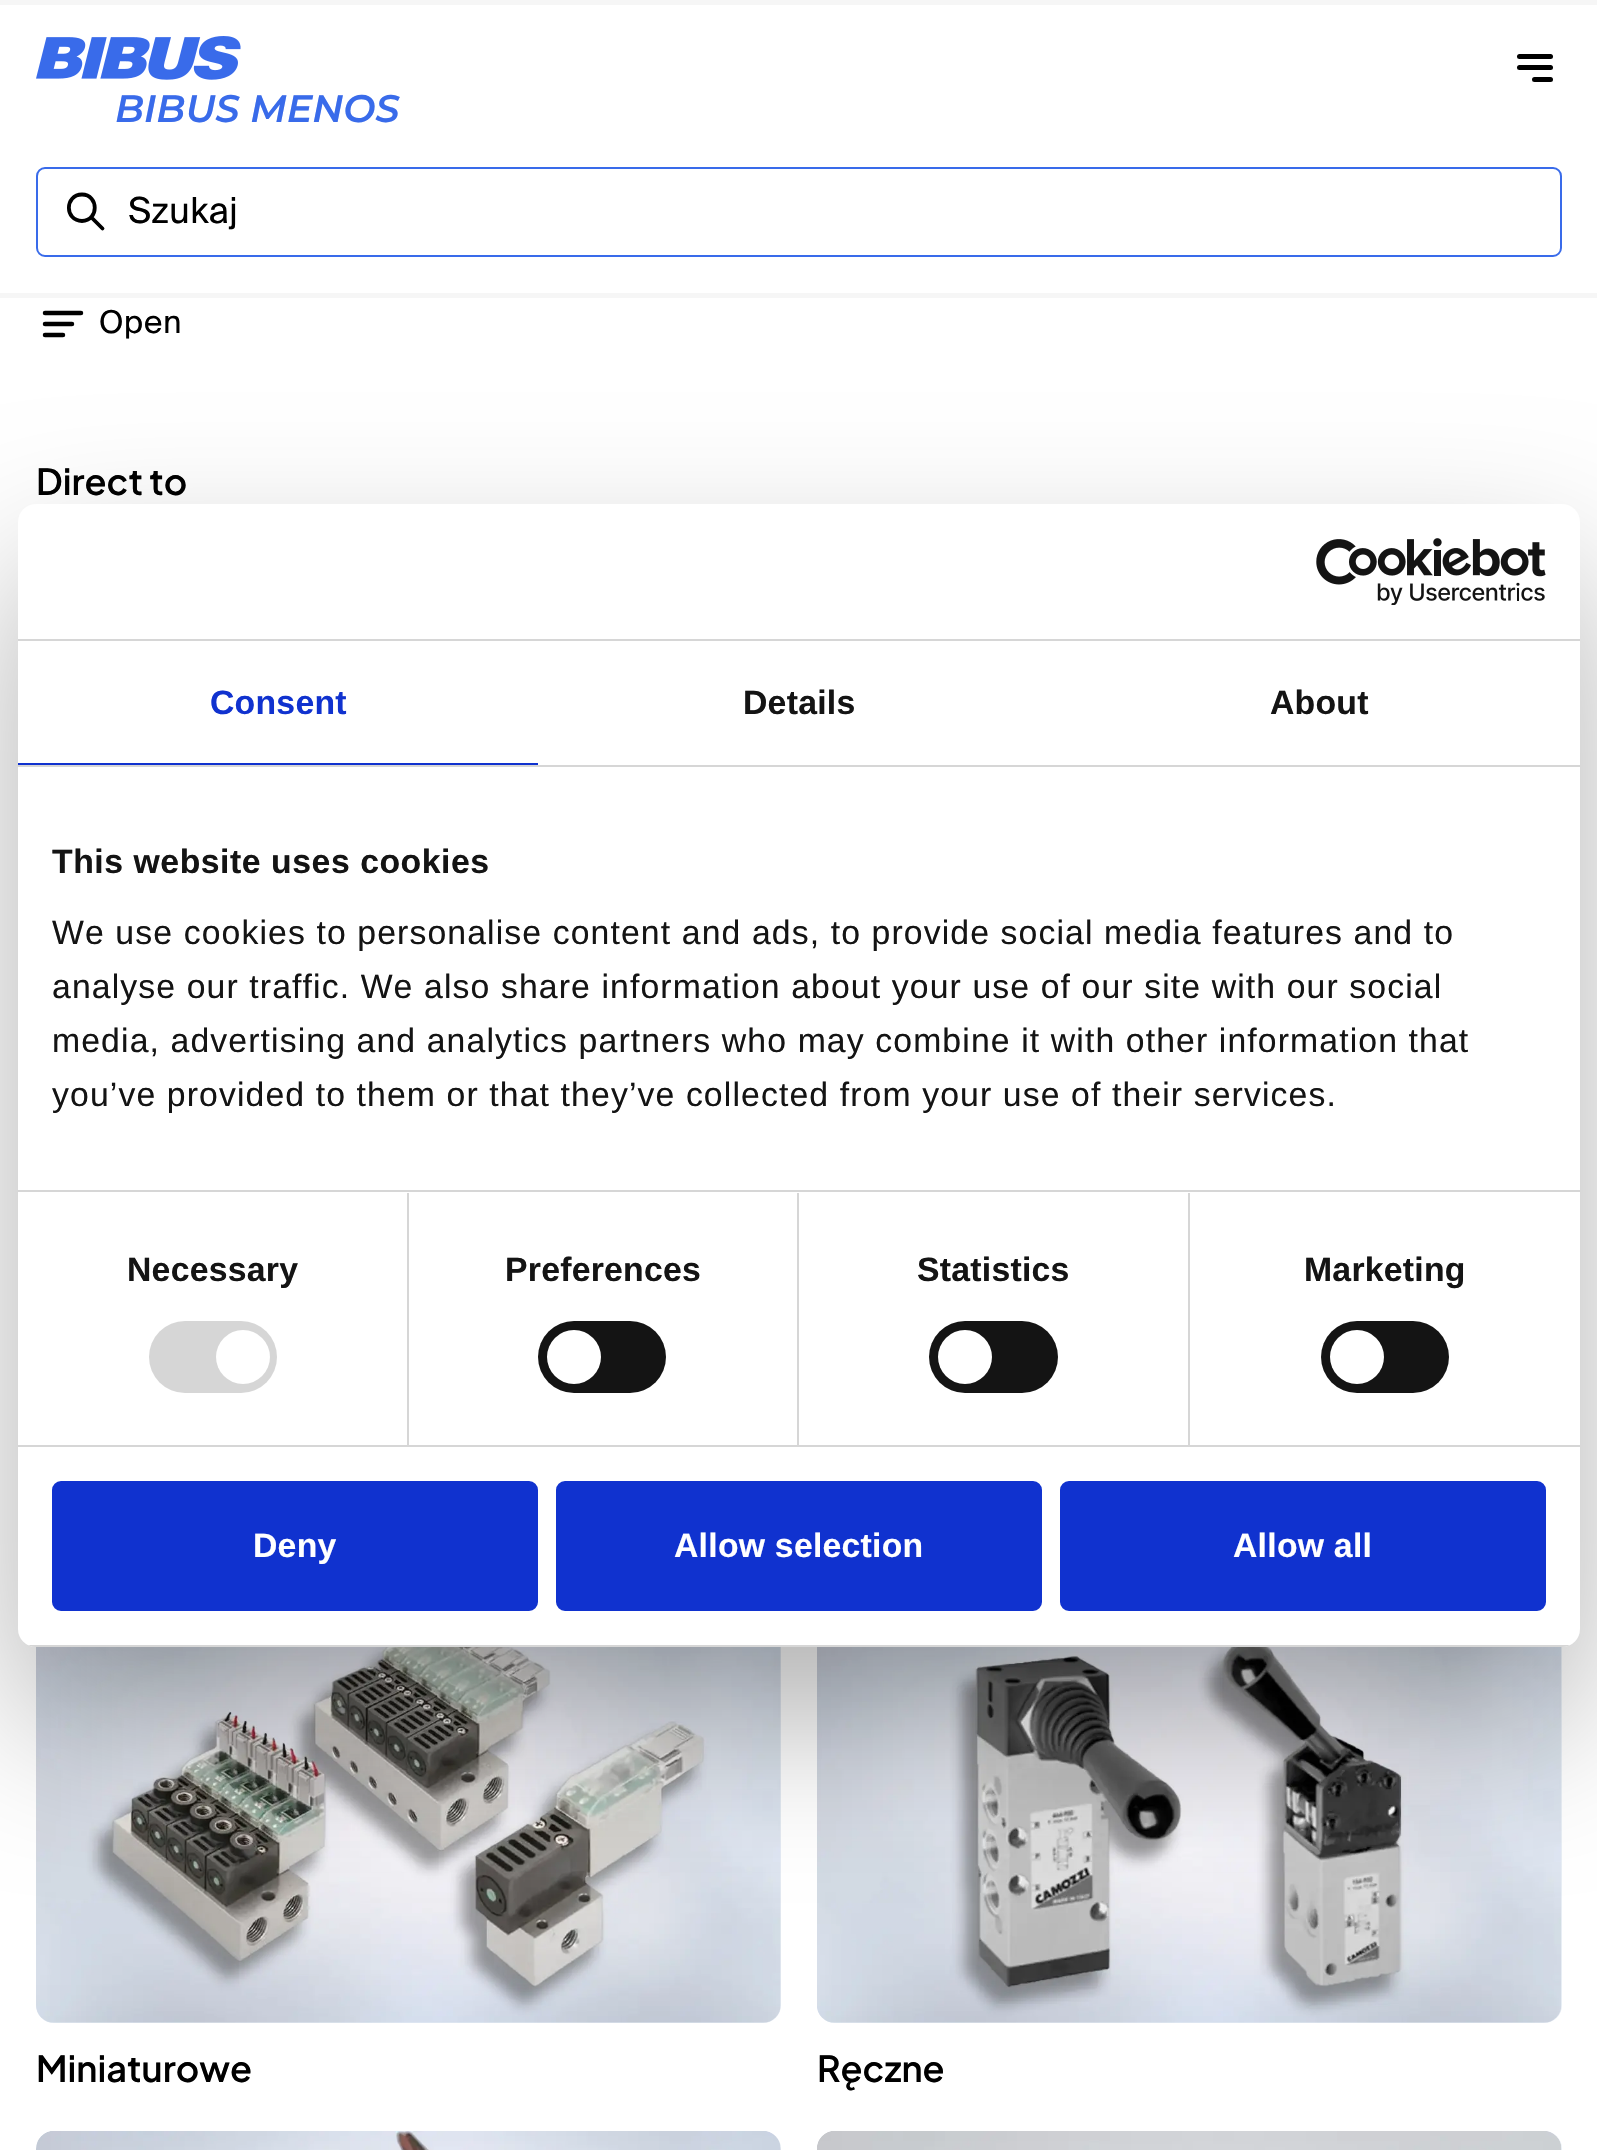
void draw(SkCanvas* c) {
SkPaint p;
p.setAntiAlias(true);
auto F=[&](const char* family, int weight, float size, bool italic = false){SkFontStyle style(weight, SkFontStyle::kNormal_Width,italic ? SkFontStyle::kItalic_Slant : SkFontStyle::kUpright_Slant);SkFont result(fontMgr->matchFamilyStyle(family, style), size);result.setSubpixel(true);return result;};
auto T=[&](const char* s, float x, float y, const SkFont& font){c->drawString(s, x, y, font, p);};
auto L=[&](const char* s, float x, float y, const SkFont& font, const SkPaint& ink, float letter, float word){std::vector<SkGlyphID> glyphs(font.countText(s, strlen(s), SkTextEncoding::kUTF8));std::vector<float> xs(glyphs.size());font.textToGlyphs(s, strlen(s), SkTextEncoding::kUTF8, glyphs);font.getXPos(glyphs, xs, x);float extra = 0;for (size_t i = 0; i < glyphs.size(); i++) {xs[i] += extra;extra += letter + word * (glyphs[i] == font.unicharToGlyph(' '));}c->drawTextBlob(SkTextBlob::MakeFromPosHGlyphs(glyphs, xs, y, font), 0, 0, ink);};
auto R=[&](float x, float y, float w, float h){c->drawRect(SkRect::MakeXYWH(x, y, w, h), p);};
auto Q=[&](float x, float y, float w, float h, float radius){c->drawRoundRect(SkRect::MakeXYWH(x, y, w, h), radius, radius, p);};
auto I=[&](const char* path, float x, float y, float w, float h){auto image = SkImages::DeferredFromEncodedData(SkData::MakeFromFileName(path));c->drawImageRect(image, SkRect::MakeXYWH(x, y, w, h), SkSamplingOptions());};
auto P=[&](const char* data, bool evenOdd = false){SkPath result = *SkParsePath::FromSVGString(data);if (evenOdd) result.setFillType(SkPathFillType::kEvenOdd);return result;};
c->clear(0xffffffff);
p.setColor(0xfff6f6f6);
R(0,293,1597,5);
R(0,0,1597,5);
p.setColor(0xff000000);
Q(1517,54,36,5,2.5);
Q(1517,65,36,5,2.5);
Q(1532,77,21,5,2.5);
I("1.png",36,36,205,44);
auto f1 = F("Montserrat",600,38.25,true);
p.setColor(0xff396bea);
T("BIBUS MENOS",115,122,f1);
p.setStroke(true);
p.setStrokeWidth(2);
c->drawRoundRect(SkRect::MakeXYWH(37,168,1524,88),8,8,p);
p.setStrokeWidth(3.8);
p.setStrokeCap(SkPaint::kRound_Cap);
p.setStrokeJoin(SkPaint::kRound_Join);
p.setColor(0xff000000);
c->drawPath(P("M82 221c17 0 17-26.5 0-26.5c-17.5 0-17.5 26.5 0 26.5m9-4l11.5 11.5"),p);
auto f2 = F("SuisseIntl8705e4",400,36);
p.setStroke(false);
T("Szukaj",128,223,f2);
p.setStroke(true);
p.setStrokeWidth(4.5);
c->drawPath(P("M45 313h36m-36 11h27m-27 11h18"),p);
auto f3 = F("SuisseIntl8705e4",400,31.5);
p.setStroke(false);
L("Open",99,333,f3,p,.5,0);
auto f4 = F("Plus Jakarta Sans",600,36);
T("Direct to",36,495,f4);
p.setColor(0xffe8eef5);
Q(36,1604,745,419,18);
I("2.png",36,1647,745,376);
p.setColor(0xff000000);
T("Miniaturowe",36,2082,f4);
p.setColor(0xffe8eef5);
Q(817,1604,745,419,18);
I("3.png",817,1647,744,376);
p.setColor(0xff000000);
T("Ręczne",817,2082,f4);
p.setColor(0xffe8eef5);
Q(36,2131,745,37,18);
I("4.png",36,2131,745,19);
Q(817,2131,745,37,18);
I("5.png",817,2131,744,19);
p.setColor(0x4d000000);
p.setMaskFilter(SkMaskFilter::MakeBlur(kNormal_SkBlurStyle, 76.5));
c->drawRoundRect(SkRect::MakeXYWH(18,576,1562,1143),18,18,p);
p.setMaskFilter(nullptr);
p.setColor(0xffffffff);
Q(18,504,1562,1143,18);
p.setColor(0xffd6d6d6);
R(18,639,1562,2);
I("6.png",1316,538,230,67);
R(18,765,1562,2);
p.setColor(0xff1032cf);
R(18,763,520,2);
auto f5 = F("Liberation Sans",700,33.75);
L("Consent",210,714,f5,p,.25,0);
p.setColor(0xff141414);
L("Details",743,714,f5,p,.25,0);
L("About",1270,714,f5,p,.25,0);
p.setColor(0xffd6d6d6);
R(18,1190,1562,2);
p.setColor(0xff141414);
L("This website uses cookies",52,873,f5,p,.55,0);
auto f6 = F("Liberation Sans",400,33.75);
L("We use cookies to personalise content and ads, to provide social media features and to",52,944,f6,p,1.12,0);
L("analyse our traffic. We also share information about your use of our site with our social",52,998,f6,p,1.12,0);
L("media, advertising and analytics partners who may combine it with other information that",52,1052,f6,p,1.12,0);
L("you’ve provided to them or that they’ve collected from your use of their services.",52,1106,f6,p,1.12,0);
p.setColor(0xffd6d6d6);
R(18,1445,1562,2);
R(407,1193,2,252);
p.setColor(0xff141414);
L("Necessary",127,1281,f5,p,.25,0);
p.setColor(0xffd6d6d6);
Q(149,1321,128,72,36);
p.setColor(0xffffffff);
c->drawCircle(243,1357,27,p);
p.setColor(0xffd6d6d6);
R(797,1193,2,252);
p.setColor(0xff141414);
L("Preferences",505,1281,f5,p,.25,0);
Q(538,1321,128,72,36);
p.setColor(0xffffffff);
c->drawCircle(574,1357,27,p);
p.setColor(0xffd6d6d6);
R(1188,1193,2,252);
p.setColor(0xff141414);
L("Statistics",917,1281,f5,p,.25,0);
Q(929,1321,129,72,36);
p.setColor(0xffffffff);
c->drawCircle(965,1357,27,p);
p.setColor(0xff141414);
L("Marketing",1304,1281,f5,p,.25,0);
Q(1321,1321,128,72,36);
p.setColor(0xffffffff);
c->drawCircle(1357,1357,27,p);
c->save();
c->clipPath(P("M36 504h1526c10 0 18 8 18 18v1107c0 10-8 18-18 18h-1526c-10 0-18-8-18-18v-1107c0-10 8-18 18-18z"),true);
p.setColor(0xffd6d6d6);
R(28,1645,1542,2);
c->restore();
p.setColor(0xff1032cf);
c->drawRoundRect(SkRect::MakeXYWH(54.5,1483.5,481,125),6.5,6.5,p);
p.setStroke(true);
p.setStrokeWidth(5);
p.setStrokeCap(SkPaint::kButt_Cap);
p.setStrokeJoin(SkPaint::kMiter_Join);
c->drawRoundRect(SkRect::MakeXYWH(54.5,1483.5,481,125),6.5,6.5,p);
p.setStroke(false);
p.setColor(0xffffffff);
L("Deny",253,1557,f5,p,.25,0);
p.setColor(0xff1032cf);
c->drawRoundRect(SkRect::MakeXYWH(558.5,1483.5,481,125),6.5,6.5,p);
p.setStroke(true);
c->drawRoundRect(SkRect::MakeXYWH(558.5,1483.5,481,125),6.5,6.5,p);
p.setStroke(false);
p.setColor(0xffffffff);
L("Allow selection",674,1557,f5,p,.25,0);
p.setColor(0xff1032cf);
c->drawRoundRect(SkRect::MakeXYWH(1062.5,1483.5,481,125),6.5,6.5,p);
p.setStroke(true);
c->drawRoundRect(SkRect::MakeXYWH(1062.5,1483.5,481,125),6.5,6.5,p);
p.setStroke(false);
p.setColor(0xffffffff);
L("Allow all",1233,1557,f5,p,.25,0);
}
